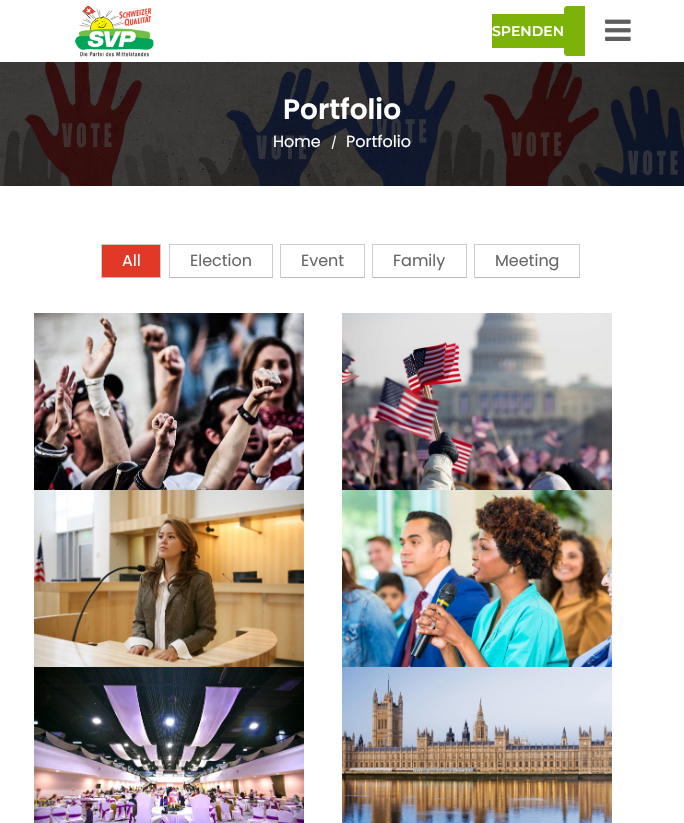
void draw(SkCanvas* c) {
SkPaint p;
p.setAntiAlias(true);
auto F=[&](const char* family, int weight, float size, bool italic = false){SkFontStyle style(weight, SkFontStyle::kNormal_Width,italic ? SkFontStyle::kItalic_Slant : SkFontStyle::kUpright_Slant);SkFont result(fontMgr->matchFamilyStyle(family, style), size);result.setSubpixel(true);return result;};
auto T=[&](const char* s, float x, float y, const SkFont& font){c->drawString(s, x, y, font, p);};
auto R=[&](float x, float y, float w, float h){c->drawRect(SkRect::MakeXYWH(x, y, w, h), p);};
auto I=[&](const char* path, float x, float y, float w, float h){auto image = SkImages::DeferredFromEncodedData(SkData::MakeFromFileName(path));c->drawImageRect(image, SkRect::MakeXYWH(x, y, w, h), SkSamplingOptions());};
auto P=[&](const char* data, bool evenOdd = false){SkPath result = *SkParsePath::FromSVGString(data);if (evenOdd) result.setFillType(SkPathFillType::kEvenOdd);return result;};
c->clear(0xffffffff);
I("1.png",75,6,79,51);
p.setColor(0xff7cb309);
c->drawPath(P("M567 6h18v50h-18c-1.5 0-3-1.5-3-3v-44c0-1.5 1.5-3 3-3z"),p);
c->drawPath(P("M492 14h90c1.5 0 3 1.5 3 3v28c0 1.5-1.5 3-3 3h-90z"),p);
auto f1 = F("Montserrat",600,14);
p.setColor(0xffffffff);
T("SPENDEN",492,36,f1);
I("2.png",605,19,26,22);
I("3.png",0,62,684,124);
auto f2 = F("Poppins",600,28);
T("Portfolio",283,119,f2);
auto f3 = F("Poppins",400,16);
T("Home",273,147,f3);
auto f4 = F("Poppins",400,12);
T("/",331,147,f4);
T("Portfolio",346,147,f3);
p.setColor(0xffe03927);
R(102,245,58,32);
p.setColor(0xffcccccc);
R(101,244,60,1);
R(160,244,1,34);
p.setColor(0xffbbbbbb);
R(101,277,60,1);
p.setColor(0xffcccccc);
R(101,244,1,34);
p.setColor(0xffffffff);
T("All",122,266,f3);
p.setColor(0xffcccccc);
R(169,244,104,1);
R(272,244,1,34);
p.setColor(0xffbbbbbb);
R(169,277,104,1);
p.setColor(0xffcccccc);
R(169,244,1,34);
p.setColor(0xff666666);
T("Election",190,266,f3);
p.setColor(0xffcccccc);
R(280,244,85,1);
R(364,244,1,34);
p.setColor(0xffbbbbbb);
R(280,277,85,1);
p.setColor(0xffcccccc);
R(280,244,1,34);
p.setColor(0xff666666);
T("Event",301,266,f3);
p.setColor(0xffcccccc);
R(372,244,95,1);
R(466,244,1,34);
p.setColor(0xffbbbbbb);
R(372,277,95,1);
p.setColor(0xffcccccc);
R(372,244,1,34);
p.setColor(0xff666666);
T("Family",393,266,f3);
p.setColor(0xffcccccc);
R(474,244,106,1);
R(579,244,1,34);
p.setColor(0xffbbbbbb);
R(474,277,106,1);
p.setColor(0xffcccccc);
R(474,244,1,34);
p.setColor(0xff666666);
T("Meeting",495,266,f3);
I("4.png",34,313,270,177);
I("5.png",342,313,270,177);
I("6.png",34,490,270,177);
I("7.png",342,490,270,177);
I("8.png",34,667,270,156);
I("9.png",342,667,270,156);
}
